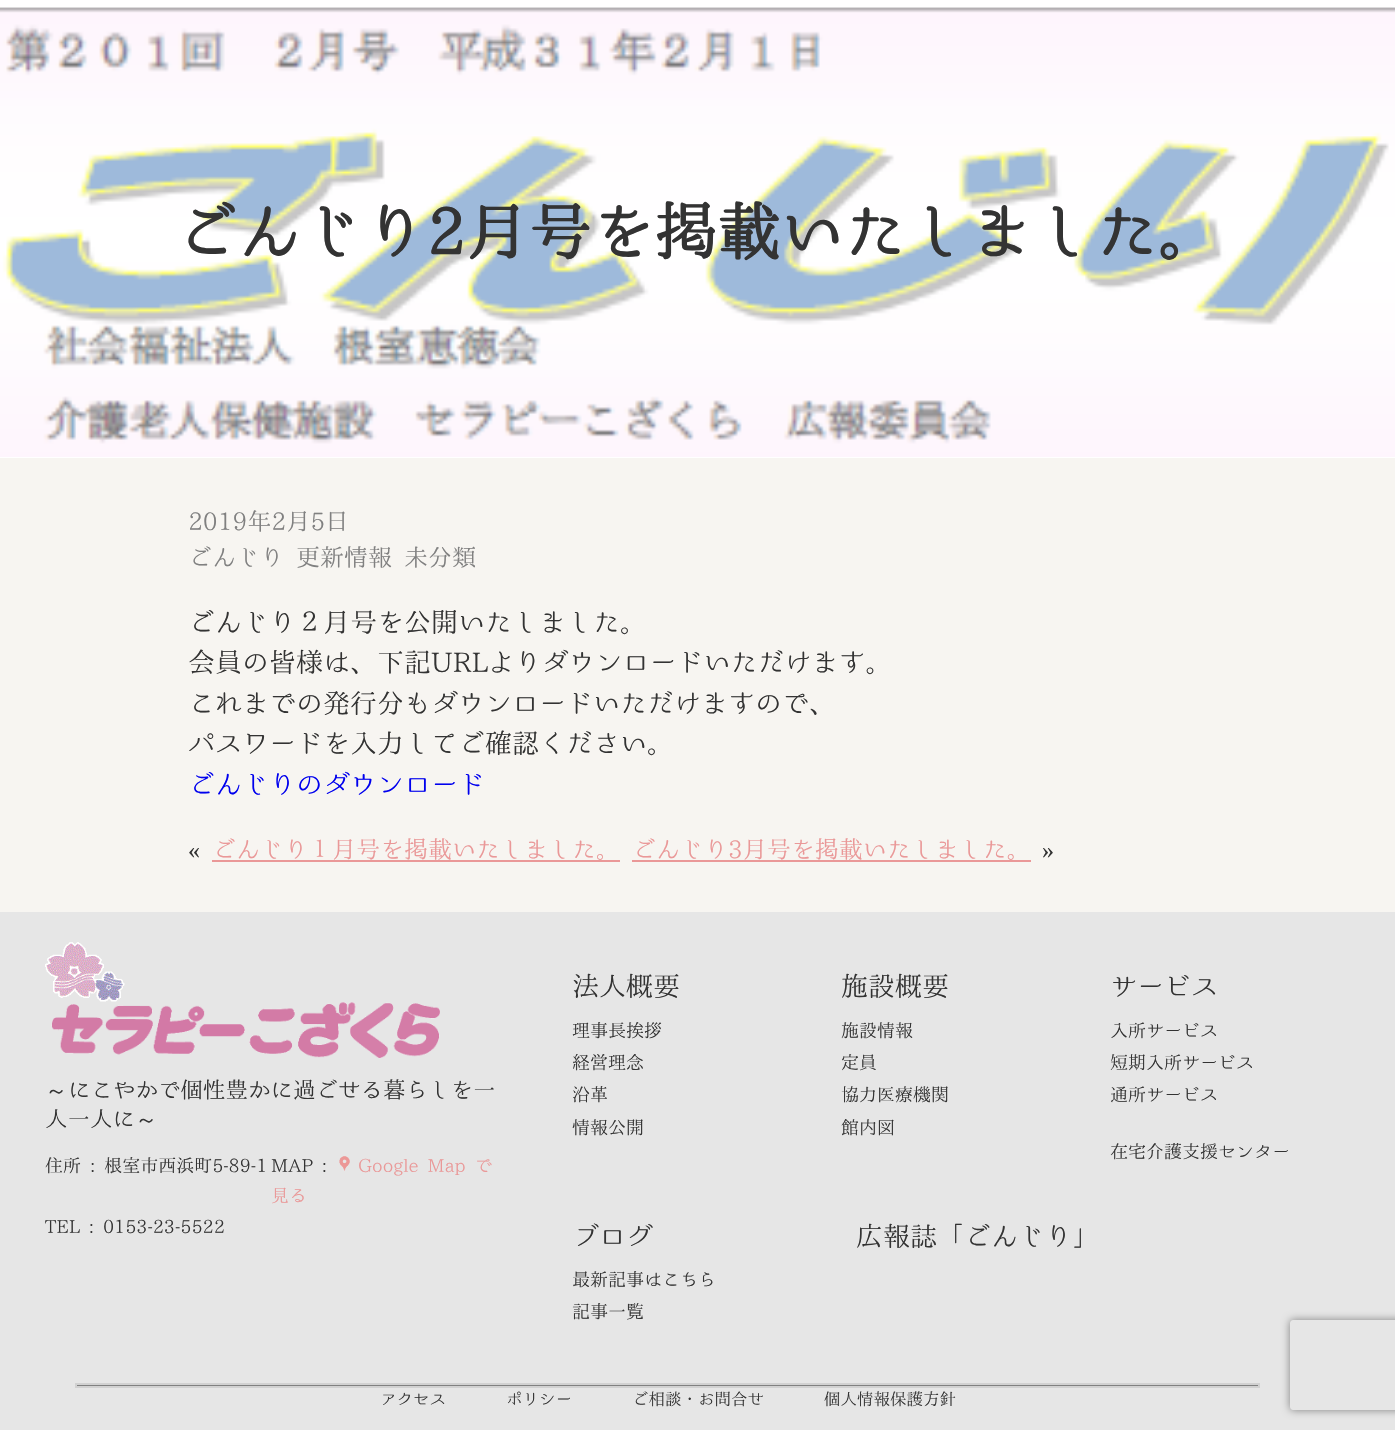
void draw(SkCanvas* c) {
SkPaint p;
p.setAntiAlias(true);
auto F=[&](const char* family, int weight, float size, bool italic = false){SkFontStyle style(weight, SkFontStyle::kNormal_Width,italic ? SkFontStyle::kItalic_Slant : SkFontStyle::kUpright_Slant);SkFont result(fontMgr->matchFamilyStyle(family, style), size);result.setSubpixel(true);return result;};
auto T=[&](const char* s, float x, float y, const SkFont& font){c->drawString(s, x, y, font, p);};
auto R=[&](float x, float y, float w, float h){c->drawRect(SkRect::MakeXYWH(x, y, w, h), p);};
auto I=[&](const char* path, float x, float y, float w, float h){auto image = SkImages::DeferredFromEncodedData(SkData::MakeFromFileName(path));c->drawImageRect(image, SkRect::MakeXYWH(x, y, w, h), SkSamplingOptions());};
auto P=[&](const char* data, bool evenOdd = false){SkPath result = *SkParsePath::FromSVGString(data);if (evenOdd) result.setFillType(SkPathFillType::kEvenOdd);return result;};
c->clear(0xffffffff);
I("1.png",0,7,1395,450);
p.setColor(0xbfffffff);
R(0,7,1395,1);
auto f1 = F("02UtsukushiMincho",700,63);
p.setColor(0xff333333);
T("ごんじり2月号を掲載いたしました。",174,255,f1);
p.setColor(0xfff7f5f1);
R(0,458,1395,454);
auto f2 = F("02UtsukushiMincho",400,24);
p.setColor(0xff808080);
T("2019年2月5日",188,530,f2);
T("ごんじり 更新情報 未分類",188,566,f2);
auto f3 = F("02UtsukushiMincho",400,27);
p.setColor(0xff333333);
T("ごんじり２月号を公開いたしました。",188,632,f3);
T("会員の皆様は、下記URLよりダウンロードいただけます。",188,672,f3);
T("これまでの発行分もダウンロードいただけますので、",188,713,f3);
T("パスワードを入力してご確認ください。",188,753,f3);
p.setColor(0xff0000ee);
T("ごんじりのダウンロード",188,794,f3);
auto f4 = F("Liberation Serif",400,24);
p.setColor(0xff333333);
T("«",188,858,f4);
p.setColor(0xffea9898);
T("ごんじり１月号を掲載いたしました。 ごんじり3月号を掲載いたしました。",212,858,f2);
R(212,860,408,2);
p.setColor(0xff333333);
T("»",1042,858,f4);
p.setColor(0xffea9898);
R(632,860,399,2);
p.setColor(0xffe6e6e6);
R(0,912,1395,518);
I("2.png",45,942,80,60);
I("3.png",51,1002,389,56);
auto f5 = F("WenQuanYi Zen Hei",500,22.5);
p.setColor(0xff333333);
T("～",45,1098,f5);
auto f6 = F("02UtsukushiMincho",400,22.5);
T("にこやかで個性豊かに過ごせる暮らしを一",68,1098,f6);
T("人一人に",45,1127,f6);
T("～",135,1127,f5);
auto f7 = F("02UtsukushiMincho",400,18);
T("住所 : 根室市西浜町5-89-1",45,1172,f7);
T("MAP :",271,1172,f7);
I("4.png",339,1156,11,15);
p.setColor(0xffea9898);
T("Google Map で",358,1172,f7);
T("見る",271,1202,f7);
p.setColor(0xff333333);
T("TEL : 0153-23-5522",45,1233,f7);
T("法人概要",572,996,f3);
T("理事長挨拶",572,1037,f7);
T("経営理念",572,1069,f7);
T("沿革",572,1101,f7);
T("情報公開",572,1134,f7);
T("施設概要",841,996,f3);
T("施設情報",841,1037,f7);
T("定員",841,1069,f7);
T("協力医療機関",841,1101,f7);
T("館内図",841,1134,f7);
T("サービス",1110,996,f3);
T("入所サービス",1110,1037,f7);
T("短期入所サービス",1110,1069,f7);
T("通所サービス",1110,1101,f7);
T("在宅介護支援センター",1110,1158,f7);
T("ブログ",572,1246,f3);
T("最新記事はこちら",572,1286,f7);
T("記事一覧",572,1318,f7);
T("広報誌「ごんじり」",856,1246,f3);
p.setColor(0xff808080);
c->drawRect(SkRect::MakeXYWH(76,1384,1183,3),p);
p.setStroke(true);
p.setStrokeWidth(2);
p.setColor(0xffd1d1d1);
c->drawRect(SkRect::MakeXYWH(76,1384,1183,3),p);
auto f8 = F("02UtsukushiMincho",400,16.5);
p.setStroke(false);
p.setColor(0xff333333);
T("アクセス",380,1405,f8);
T("ポリシー",506,1405,f8);
T("ご相談・お問合せ",632,1405,f8);
T("個人情報保護方針",824,1405,f8);
c->save();
c->clipPath(P("M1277 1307h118v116h-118zm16 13h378c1.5 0 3 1.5 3 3v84c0 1.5-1.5 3-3 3h-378c-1.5 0-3-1.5-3-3v-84c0-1.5 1.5-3 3-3z",true),true);
p.setColor(0xff808080);
p.setMaskFilter(SkMaskFilter::MakeBlur(kNormal_SkBlurStyle, 4));
c->drawRoundRect(SkRect::MakeXYWH(1290,1320,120,90),3,3,p);
p.setMaskFilter(nullptr);
c->restore();
}
